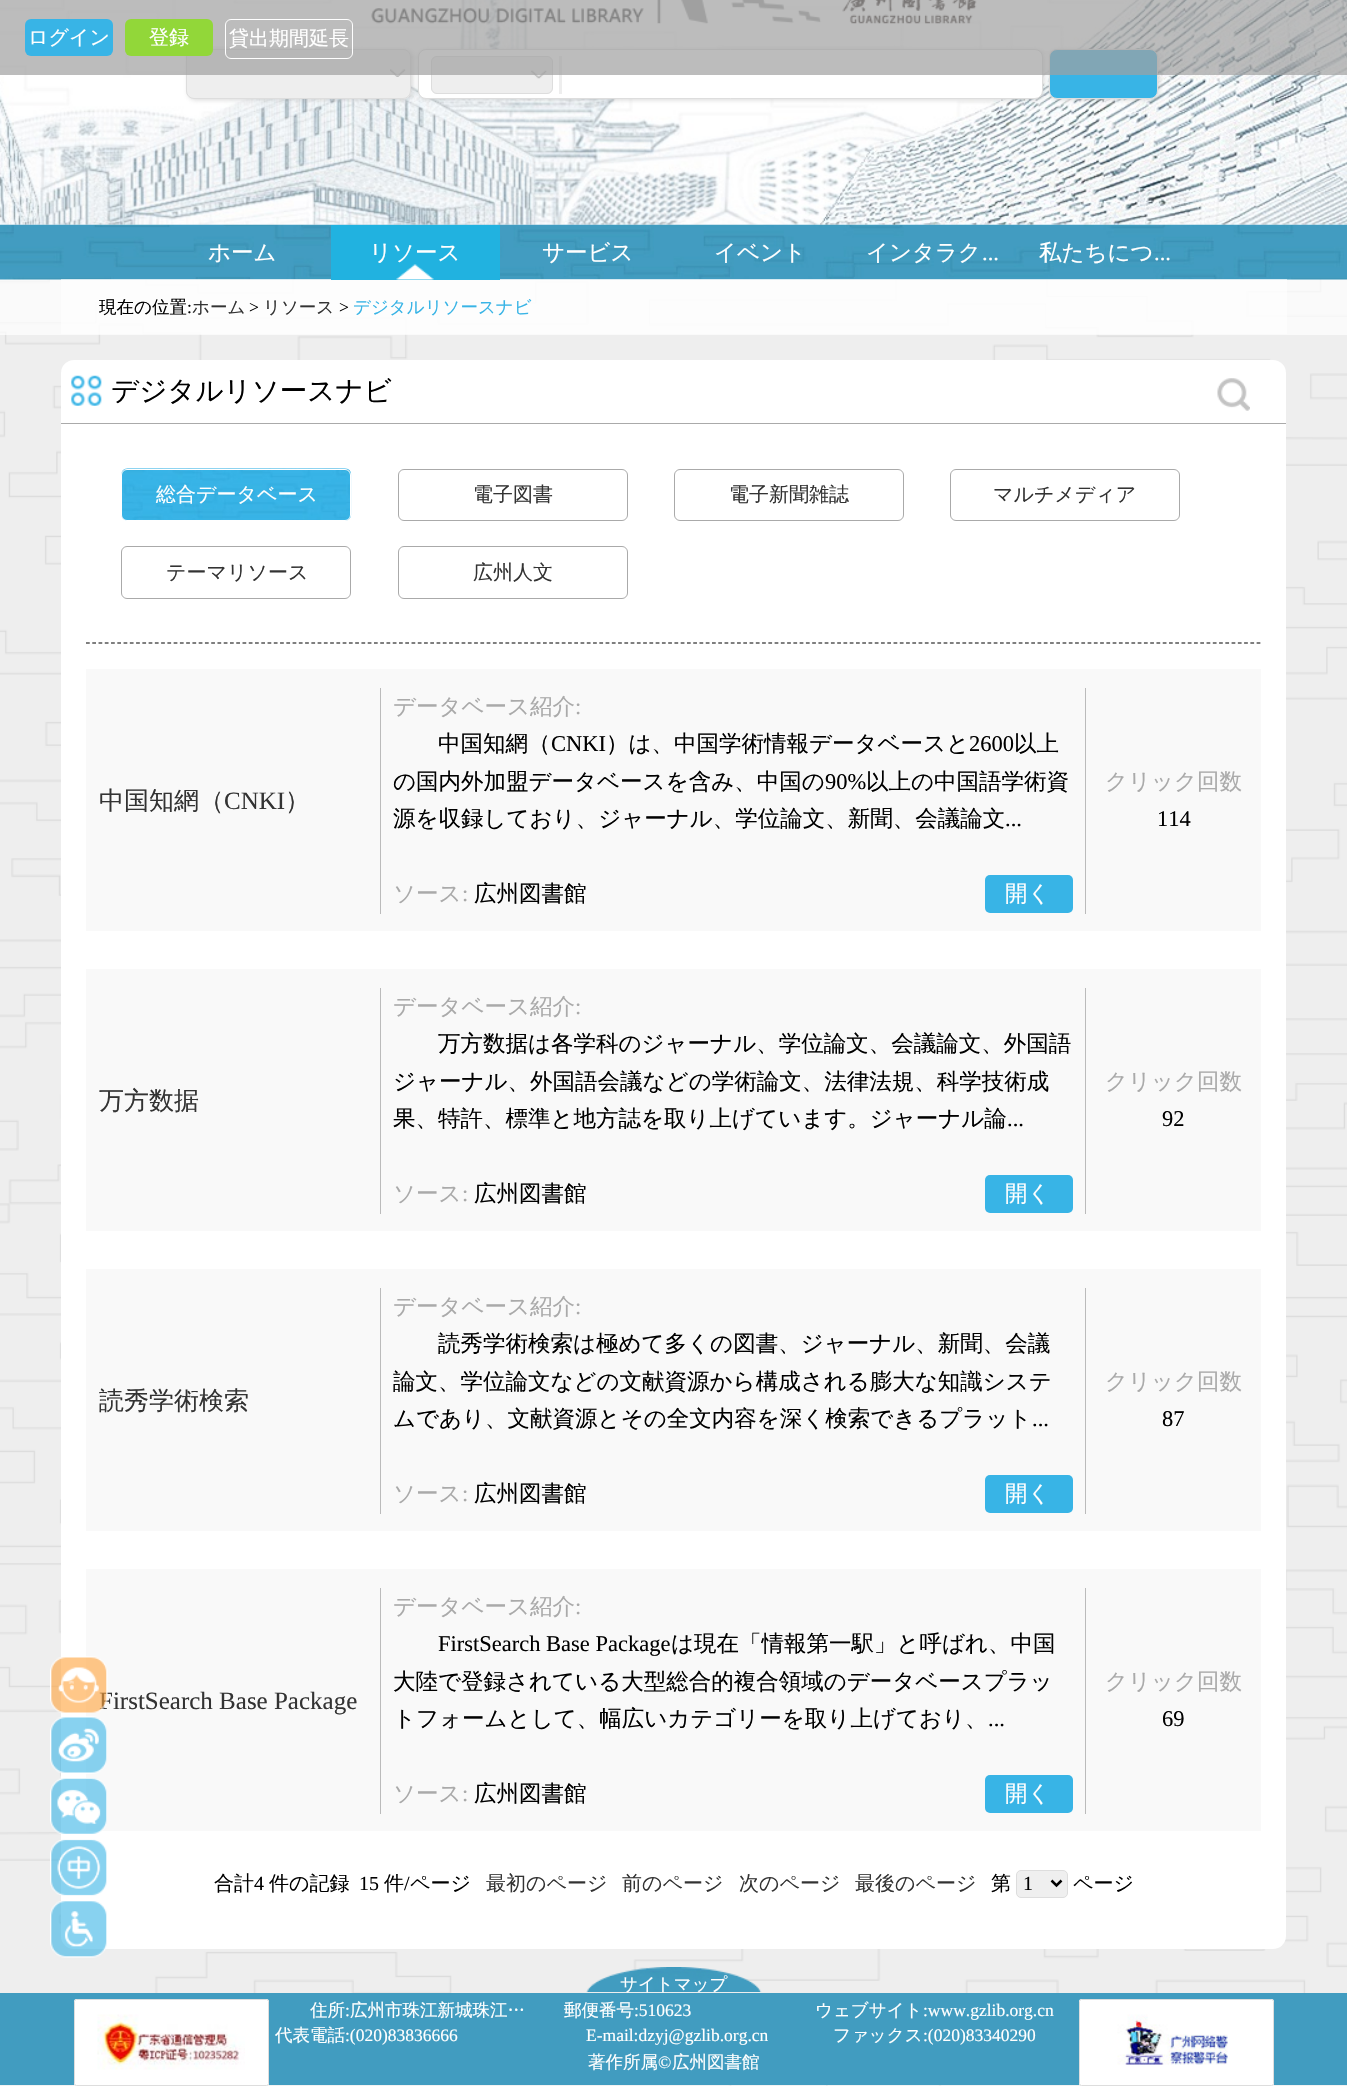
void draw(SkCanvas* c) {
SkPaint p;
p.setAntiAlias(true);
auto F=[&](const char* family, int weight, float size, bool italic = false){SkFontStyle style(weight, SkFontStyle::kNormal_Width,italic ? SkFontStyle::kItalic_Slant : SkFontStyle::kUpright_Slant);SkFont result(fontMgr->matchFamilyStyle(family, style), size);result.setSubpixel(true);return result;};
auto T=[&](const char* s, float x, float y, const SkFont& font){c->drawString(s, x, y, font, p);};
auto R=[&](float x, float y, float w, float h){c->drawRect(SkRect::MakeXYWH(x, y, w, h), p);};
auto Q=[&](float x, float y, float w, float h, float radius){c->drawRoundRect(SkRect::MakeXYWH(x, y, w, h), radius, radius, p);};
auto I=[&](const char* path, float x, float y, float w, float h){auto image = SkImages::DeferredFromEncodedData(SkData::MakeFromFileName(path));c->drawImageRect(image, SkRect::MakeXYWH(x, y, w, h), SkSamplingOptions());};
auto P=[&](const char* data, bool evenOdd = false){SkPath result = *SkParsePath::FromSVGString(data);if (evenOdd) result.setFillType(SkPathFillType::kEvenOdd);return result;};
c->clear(0xffffffff);
I("1.png",0,224,1347,1862);
p.setColor(0xb3ffffff);
R(0,224,1347,111);
I("6.png",0,224,1347,56);
I("2.png",0,0,1347,225);
I("3.png",371,0,606,24);
p.setColor(0x73aaaaaa);
p.setMaskFilter(SkMaskFilter::MakeBlur(kNormal_SkBlurStyle, 2.5));
c->drawRoundRect(SkRect::MakeXYWH(419,50,625,50),8,8,p);
p.setMaskFilter(nullptr);
p.setColor(0xffffffff);
c->drawRoundRect(SkRect::MakeXYWH(418.5,49.5,624,49),7.5,7.5,p);
p.setStroke(true);
p.setStrokeWidth(1);
p.setColor(0xffdddddd);
c->drawRoundRect(SkRect::MakeXYWH(418.5,49.5,624,49),7.5,7.5,p);
p.setStroke(false);
p.setColor(0x73aaaaaa);
p.setMaskFilter(SkMaskFilter::MakeBlur(kNormal_SkBlurStyle, 2.5));
c->drawRoundRect(SkRect::MakeXYWH(188,50,225,50),8,8,p);
p.setMaskFilter(nullptr);
p.setColor(0xffeeeeee);
Q(186,49,225,50,8);
I("4.png",390,69,16,8);
p.setStroke(true);
p.setColor(0xffdddddd);
c->drawRoundRect(SkRect::MakeXYWH(186.5,49.5,224,49),7.5,7.5,p);
p.setStroke(false);
p.setColor(0xffeeeeee);
Q(431,56,122,38,6);
I("5.png",531,70,16,9);
p.setStroke(true);
p.setColor(0xffdddddd);
c->drawRoundRect(SkRect::MakeXYWH(431.5,56.5,121,37),5.5,5.5,p);
p.setStroke(false);
p.setColor(0xffeeeeee);
R(559,56,3,38);
p.setColor(0x73aaaaaa);
p.setMaskFilter(SkMaskFilter::MakeBlur(kNormal_SkBlurStyle, 2.5));
c->drawRoundRect(SkRect::MakeXYWH(1050,50,109,50),8,8,p);
p.setMaskFilter(nullptr);
p.setColor(0xff38b4e6);
c->drawRoundRect(SkRect::MakeXYWH(1049.5,49.5,108,49),7.5,7.5,p);
p.setStroke(true);
p.setColor(0xffdddddd);
c->drawRoundRect(SkRect::MakeXYWH(1049.5,49.5,108,49),7.5,7.5,p);
p.setStroke(false);
p.setColor(0xb3a0a0a0);
R(0,0,1347,75);
p.setColor(0xff38b4e6);
Q(25,19,88,37,6);
auto f1 = F("WenQuanYi Zen Hei",500,20);
p.setColor(0xffffffff);
T("ログイン",28,44,f1);
p.setColor(0xff92d739);
Q(125,19,88,37,6);
p.setColor(0xffffffff);
T("登録",149,44,f1);
p.setStroke(true);
c->drawRoundRect(SkRect::MakeXYWH(225.5,19.5,127,39),5.5,5.5,p);
p.setStroke(false);
T("貸出期間延長",229,45,f1);
auto f2 = F("WenQuanYi Zen Hei",500,22.5);
T("ホーム",208,260,f2);
p.setColor(0x99ffffff);
R(61,279,1226,55);
p.setColor(0xff21b2e0);
R(331,225,169,55);
I("7.png",396,264,38,16);
p.setColor(0xffffffff);
T("リソース",369,260,f2);
T("サービス",542,260,f2);
T("イベント",714,260,f2);
T("インタラク",866,260,f2);
auto f3 = F("Liberation Serif",400,22.5);
T("...",982,260,f3);
T("私たちにつ",1039,260,f2);
T("...",1154,260,f3);
auto f4 = F("WenQuanYi Zen Hei",500,17.5);
p.setColor(0xff000000);
T("現在の位置",99,313,f4);
auto f5 = F("Liberation Serif",400,17.5);
T(":",187,313,f5);
p.setColor(0xff333333);
T("ホーム",192,313,f4);
p.setColor(0xff000000);
T(">",249,313,f5);
p.setColor(0xff333333);
T("リソース",263,313,f4);
p.setColor(0xff000000);
T(">",339,313,f5);
p.setColor(0xff38b4e6);
T("デジタルリソースナビ",353,313,f4);
p.setColor(0xffffffff);
Q(61,360,1225,1589,13);
p.setColor(0xfff9f9f9);
R(86,1569,1175,262);
auto f6 = F("Liberation Serif",400,25);
p.setColor(0xff333333);
T("FirstSearch Base Package",99,1709,f6);
I("8.png",50,1656,58,57);
I("9.png",50,1716,57,58);
I("10.png",50,1778,57,56);
I("11.png",50,1839,57,57);
I("12.png",50,1901,57,57);
I("13.png",71,375,31,31);
p.setColor(0xffaaaaaa);
R(61,423,1225,1);
auto f7 = F("WenQuanYi Zen Hei",500,27.5);
p.setColor(0xff000000);
T("デジタルリソースナビ",111,400,f7);
I("14.png",1217,378,33,33);
I("15.png",121,468,231,53);
p.setStroke(true);
p.setColor(0xffffffff);
c->drawRoundRect(SkRect::MakeXYWH(121.5,469.5,229,51),5.5,5.5,p);
p.setStroke(false);
T("総合データベース",156,501,f1);
p.setStroke(true);
p.setColor(0xffaaaaaa);
c->drawRoundRect(SkRect::MakeXYWH(398.5,469.5,229,51),5.5,5.5,p);
p.setStroke(false);
p.setColor(0xff333333);
T("電子図書",473,501,f1);
p.setStroke(true);
p.setColor(0xffaaaaaa);
c->drawRoundRect(SkRect::MakeXYWH(674.5,469.5,229,51),5.5,5.5,p);
p.setStroke(false);
p.setColor(0xff333333);
T("電子新聞雑誌",729,501,f1);
p.setStroke(true);
p.setColor(0xffaaaaaa);
c->drawRoundRect(SkRect::MakeXYWH(950.5,469.5,229,51),5.5,5.5,p);
p.setStroke(false);
p.setColor(0xff333333);
T("マルチメディア",993,501,f1);
p.setStroke(true);
p.setColor(0xffaaaaaa);
c->drawRoundRect(SkRect::MakeXYWH(121.5,546.5,229,52),5.5,5.5,p);
p.setStroke(false);
p.setColor(0xff333333);
T("テーマリソース",166,579,f1);
p.setStroke(true);
p.setColor(0xffaaaaaa);
c->drawRoundRect(SkRect::MakeXYWH(398.5,546.5,229,52),5.5,5.5,p);
p.setStroke(false);
p.setColor(0xff333333);
T("広州人文",473,579,f1);
p.setStroke(true);
p.setStrokeWidth(1.2);
p.setColor(0xff000000);
p.setPathEffect(SkDashPathEffect::Make({{3.75f,2.51f}}, 0));
c->drawPath(P("M86 643h1175"),p);
p.setPathEffect(nullptr);
p.setStroke(false);
p.setColor(0xfff9f9f9);
R(86,669,1175,262);
p.setColor(0xffbbbbbb);
R(380,688,1,226);
auto f8 = F("WenQuanYi Zen Hei",500,25);
p.setColor(0xff333333);
T("中国知網（",99,809,f8);
T("CNKI",224,809,f6);
T("）",285,809,f8);
p.setColor(0xffbbbbbb);
R(1085,688,1,226);
p.setColor(0xffaaaaaa);
T("データベース紹介",393,714,f2);
T(":",575,714,f3);
p.setColor(0xff000000);
T("中国知網（",438,751,f2);
T("CNKI",551,751,f3);
T("）は、中国学術情報データベースと",606,751,f2);
T("2600",969,751,f3);
T("以上",1014,751,f2);
T("の国内外加盟データベースを含み、中国の",393,789,f2);
T("90%",825,789,f3);
T("以上の中国語学術資",866,789,f2);
T("源を収録しており、ジャーナル、学位論文、新聞、会議論文",393,826,f2);
T("...",1005,826,f3);
p.setColor(0xffaaaaaa);
T("ソース",393,901,f2);
T(":",462,901,f3);
p.setColor(0xff000000);
T("広州図書館",474,901,f2);
p.setColor(0xff38b4e6);
Q(985,875,88,38,5);
p.setColor(0xffffffff);
T("開く",1005,901,f2);
p.setColor(0xffaaaaaa);
T("クリック回数",1105,789,f2);
p.setColor(0xff000000);
T("114",1157,826,f3);
p.setColor(0xfff9f9f9);
R(86,969,1175,262);
p.setColor(0xffbbbbbb);
R(380,988,1,226);
p.setColor(0xff333333);
T("万方数据",99,1109,f8);
p.setColor(0xffbbbbbb);
R(1085,988,1,226);
p.setColor(0xffaaaaaa);
T("データベース紹介",393,1014,f2);
T(":",575,1014,f3);
p.setColor(0xff000000);
T("万方数据は各学科のジャーナル、学位論文、会議論文、外国語",438,1051,f2);
T("ジャーナル、外国語会議などの学術論文、法律法規、科学技術成",393,1089,f2);
T("果、特許、標準と地方誌を取り上げています。ジャーナル論",393,1126,f2);
T("...",1007,1126,f3);
p.setColor(0xffaaaaaa);
T("ソース",393,1201,f2);
T(":",462,1201,f3);
p.setColor(0xff000000);
T("広州図書館",474,1201,f2);
p.setColor(0xff38b4e6);
Q(985,1175,88,38,5);
p.setColor(0xffffffff);
T("開く",1005,1201,f2);
p.setColor(0xffaaaaaa);
T("クリック回数",1105,1089,f2);
p.setColor(0xff000000);
T("92",1162,1126,f3);
p.setColor(0xfff9f9f9);
R(86,1269,1175,262);
p.setColor(0xffbbbbbb);
R(380,1288,1,226);
p.setColor(0xff333333);
T("読秀学術検索",99,1409,f8);
p.setColor(0xffbbbbbb);
R(1085,1288,1,226);
p.setColor(0xffaaaaaa);
T("データベース紹介",393,1314,f2);
T(":",575,1314,f3);
p.setColor(0xff000000);
T("読秀学術検索は極めて多くの図書、ジャーナル、新聞、会議",438,1351,f2);
T("論文、学位論文などの文献資源から構成される膨大な知識システ",393,1389,f2);
T("ムであり、文献資源とその全文内容を深く検索できるプラット",393,1426,f2);
T("...",1032,1426,f3);
p.setColor(0xffaaaaaa);
T("ソース",393,1501,f2);
T(":",462,1501,f3);
p.setColor(0xff000000);
T("広州図書館",474,1501,f2);
p.setColor(0xff38b4e6);
Q(985,1475,88,38,5);
p.setColor(0xffffffff);
T("開く",1005,1501,f2);
p.setColor(0xffaaaaaa);
T("クリック回数",1105,1389,f2);
p.setColor(0xff000000);
T("87",1162,1426,f3);
p.setColor(0xffbbbbbb);
R(380,1588,1,226);
R(1085,1588,1,226);
p.setColor(0xffaaaaaa);
T("データベース紹介",393,1614,f2);
T(":",575,1614,f3);
p.setColor(0xff000000);
T("FirstSearch Base Package",438,1651,f3);
T("は現在「情報第一駅」と呼ばれ、中国",671,1651,f2);
T("大陸で登録されている大型総合的複合領域のデータベースプラッ",393,1689,f2);
T("トフォームとして、幅広いカテゴリーを取り上げており、",393,1726,f2);
T("...",988,1726,f3);
p.setColor(0xffaaaaaa);
T("ソース",393,1801,f2);
T(":",462,1801,f3);
p.setColor(0xff000000);
T("広州図書館",474,1801,f2);
p.setColor(0xff38b4e6);
Q(985,1775,88,38,5);
p.setColor(0xffffffff);
T("開く",1005,1801,f2);
p.setColor(0xffaaaaaa);
T("クリック回数",1105,1689,f2);
p.setColor(0xff000000);
T("69",1162,1726,f3);
T("合計",214,1890,f1);
auto f9 = F("Liberation Serif",400,20);
T("4",254,1890,f9);
T("件の記録",269,1890,f1);
T("15",359,1890,f9);
T("件",384,1890,f1);
T("/",404,1890,f9);
T("ページ",410,1890,f1);
p.setColor(0xff333333);
T("最初のページ",486,1890,f1);
T("前のページ",622,1890,f1);
T("次のページ",739,1890,f1);
T("最後のページ",855,1890,f1);
p.setColor(0xff000000);
T("第",991,1890,f1);
p.setColor(0xffefefef);
c->drawRoundRect(SkRect::MakeXYWH(1016.5,1870.5,51,27),4.5,4.5,p);
p.setStroke(true);
p.setStrokeWidth(1);
p.setColor(0xffdddddd);
c->drawRoundRect(SkRect::MakeXYWH(1016.5,1870.5,51,27),4.5,4.5,p);
p.setStrokeWidth(2.5);
p.setColor(0xff000000);
c->drawPath(P("M1051.5 1880.5l5 5l5-5"),p);
p.setStroke(false);
T("1",1023,1890,f9);
T("ページ",1073,1890,f1);
p.setColor(0xff419cc0);
R(0,1993,1347,92);
I("16.png",586,1967,176,25);
p.setColor(0xffffffff);
T("サイトマップ",620,1990,f4);
T("住所",310,2016,f4);
T(":",345,2016,f5);
T("広州市珠江新城珠江…",350,2016,f4);
T("郵便番号",564,2016,f4);
T(":510623",634,2016,f5);
T("ウェブサイト",815,2016,f4);
T(":www.gzlib.org.cn",923,2016,f5);
T("代表電話",275,2041,f4);
T(":(020)83836666",345,2041,f5);
T("E-mail:dzyj@gzlib.org.cn",586,2041,f5);
T("ファックス",833,2041,f4);
T(":(020)83340290",923,2041,f5);
Q(74,1999,195,87,2.5);
I("17.png",97,2014,148,56);
p.setStroke(true);
p.setStrokeWidth(1);
p.setColor(0xffdddddd);
c->drawRoundRect(SkRect::MakeXYWH(74.5,1999.5,194,86),2,2,p);
p.setStroke(false);
p.setColor(0xffffffff);
T("著作所属",588,2068,f4);
T("©",658,2068,f5);
T("広州図書館",672,2068,f4);
Q(1079,1999,195,87,2.5);
I("18.png",1117,2014,111,51);
p.setStroke(true);
p.setColor(0xffdddddd);
c->drawRoundRect(SkRect::MakeXYWH(1079.5,1999.5,194,86),2,2,p);
}
